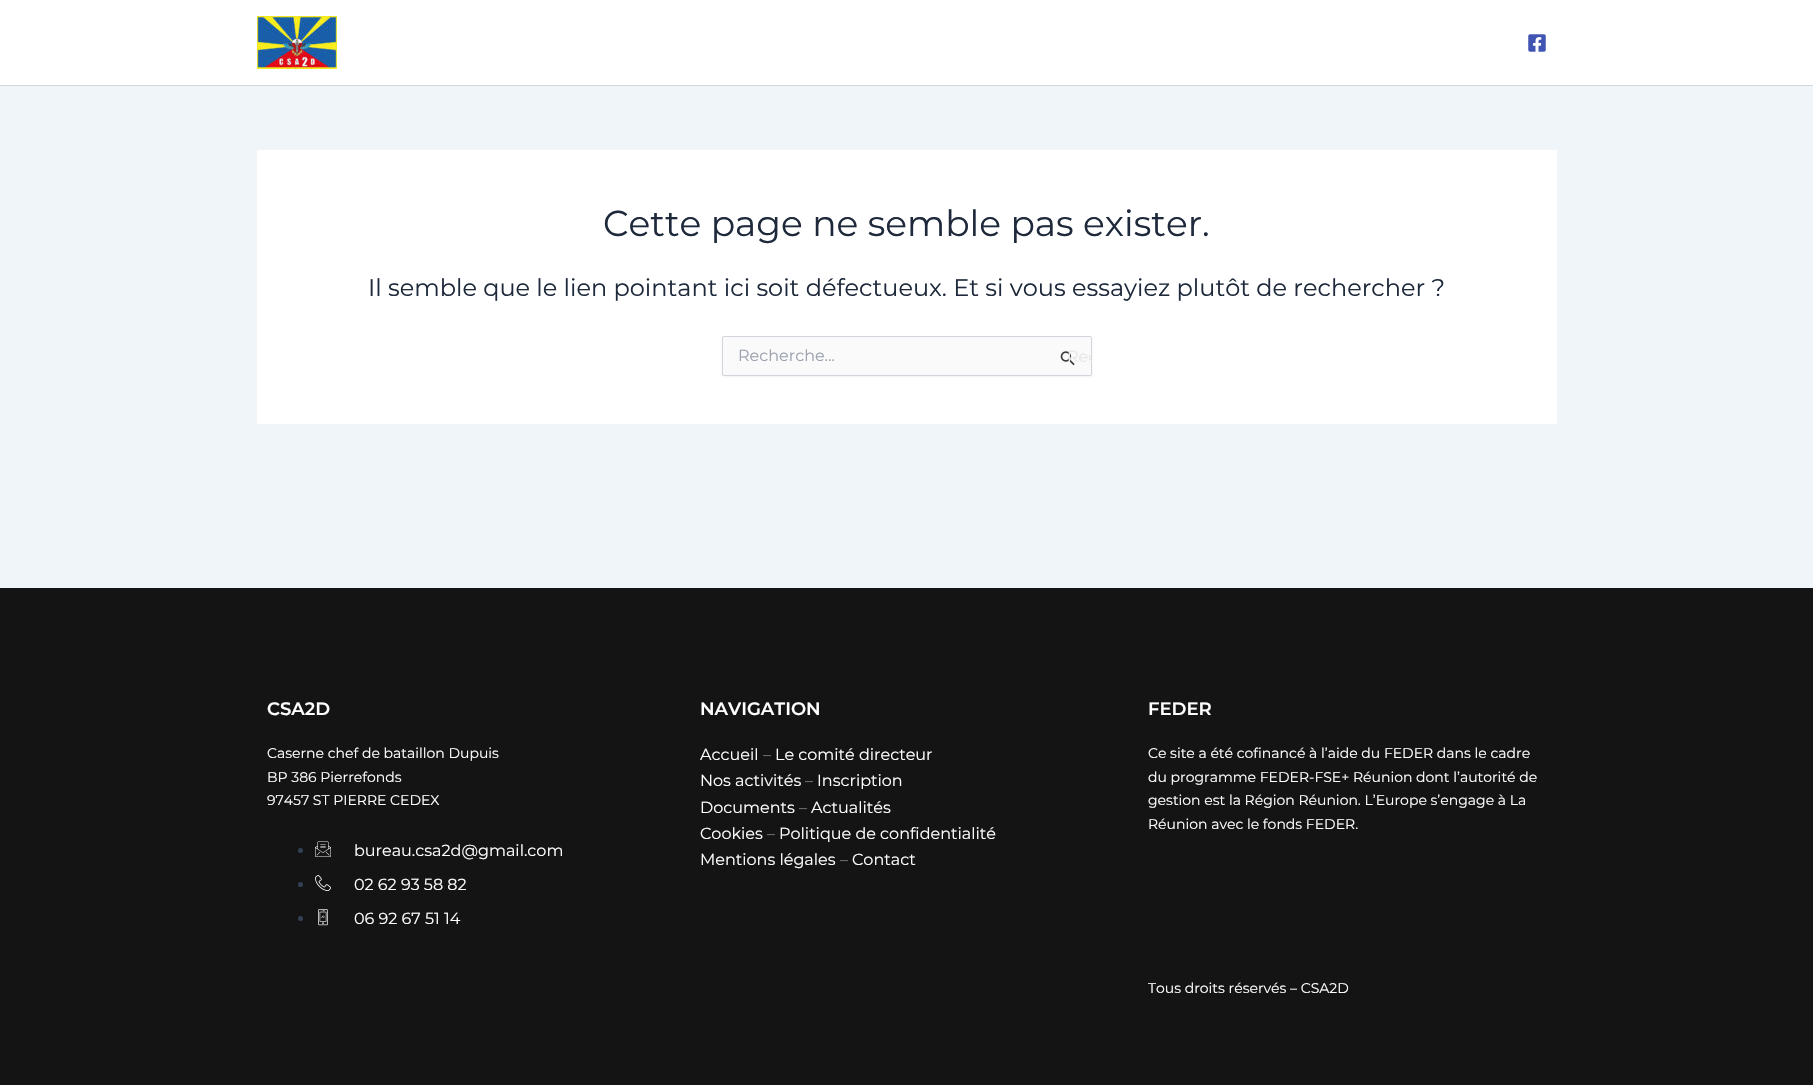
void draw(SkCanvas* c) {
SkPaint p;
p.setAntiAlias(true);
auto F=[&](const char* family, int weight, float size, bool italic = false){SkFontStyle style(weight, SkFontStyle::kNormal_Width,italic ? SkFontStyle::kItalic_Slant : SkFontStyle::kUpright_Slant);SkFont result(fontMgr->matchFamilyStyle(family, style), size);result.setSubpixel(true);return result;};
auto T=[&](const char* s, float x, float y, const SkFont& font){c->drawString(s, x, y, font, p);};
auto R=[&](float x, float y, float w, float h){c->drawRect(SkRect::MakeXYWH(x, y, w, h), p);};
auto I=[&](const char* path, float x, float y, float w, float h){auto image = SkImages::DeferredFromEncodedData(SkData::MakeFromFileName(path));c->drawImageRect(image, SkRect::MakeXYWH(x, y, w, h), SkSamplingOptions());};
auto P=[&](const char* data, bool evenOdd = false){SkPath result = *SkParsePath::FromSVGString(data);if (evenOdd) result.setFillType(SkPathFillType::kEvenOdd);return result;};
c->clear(0xfff0f5fa);
p.setColor(0xffffffff);
R(0,0,1813,85);
p.setColor(0xffd1d5db);
R(0,85,1813,1);
I("1.png",257,16,80,53);
I("2.png",1528,34,18,18);
p.setColor(0xffffffff);
R(257,150,1300,274);
auto f1 = F("Montserrat",400,36);
p.setColor(0xff1e293b);
T("Cette page ne semble pas exister.",603,236,f1);
auto f2 = F("Montserrat",400,24);
T("Il semble que le lien pointant ici soit défectueux. Et si vous essayiez plutôt de rechercher ?",368,296,f2);
p.setColor(0x0d000000);
p.setMaskFilter(SkMaskFilter::MakeBlur(kNormal_SkBlurStyle, 1));
c->drawRoundRect(SkRect::MakeXYWH(722,337,370,40),2,2,p);
p.setMaskFilter(nullptr);
p.setColor(0xfffafafa);
c->drawRoundRect(SkRect::MakeXYWH(722.5,336.5,369,39),1.5,1.5,p);
p.setStroke(true);
p.setStrokeWidth(1);
p.setColor(0xffd1d5db);
c->drawRoundRect(SkRect::MakeXYWH(722.5,336.5,369,39),1.5,1.5,p);
auto f3 = F("Montserrat",400,16);
p.setStroke(false);
p.setColor(0xff9ca3af);
T("Recherche…",738,361,f3);
I("3.png",1060,351,15,15);
c->save();
c->clipPath(P("M1049 336h41c1 0 2 1 2 2v38c0 1-1 2-2 2h-41c-1 0-2-1-2-2v-38c0-1 1-2 2-2z"),true);
p.setColor(0xffe7e8e8);
T("Rec",1067,362,f3);
c->restore();
p.setColor(0xff151414);
R(0,588,1813,497);
auto f4 = F("Montserrat",600,18);
p.setColor(0xffffffff);
T("CSA2D",267,715,f4);
auto f5 = F("Montserrat",400,14);
T("Caserne chef de bataillon Dupuis",267,758,f5);
T("BP 386 Pierrefonds",267,782,f5);
T("97457 ST PIERRE CEDEX",267,805,f5);
p.setColor(0xff334155);
c->drawCircle(300.5,850.5,2.5,p);
I("4.png",315,841,16,16);
p.setColor(0xffffffff);
T("bureau.csa2d@gmail.com",354,856,f3);
p.setColor(0xff334155);
c->drawCircle(300.5,884.5,2.5,p);
I("5.png",315,875,16,16);
p.setColor(0xffffffff);
T("02 62 93 58 82",354,890,f3);
p.setColor(0xff334155);
c->drawCircle(300.5,918.5,2.5,p);
I("6.png",318,909,10,17);
p.setColor(0xffffffff);
T("06 92 67 51 14",354,924,f3);
T("NAVIGATION",700,715,f4);
T("Accueil",700,760,f3);
p.setColor(0xff7a7a7a);
T("–",763,760,f3);
p.setColor(0xffffffff);
T("Le comité directeur",775,760,f3);
T("Nos activités",700,786,f3);
p.setColor(0xff7a7a7a);
T("–",805,786,f3);
p.setColor(0xffffffff);
T("Inscription",817,786,f3);
T("Documents",700,813,f3);
p.setColor(0xff7a7a7a);
T("–",799,813,f3);
p.setColor(0xffffffff);
T("Actualités",811,813,f3);
T("Cookies",700,839,f3);
p.setColor(0xff7a7a7a);
T("–",767,839,f3);
p.setColor(0xffffffff);
T("Politique de confidentialité",779,839,f3);
T("Mentions légales",700,865,f3);
p.setColor(0xff7a7a7a);
T("–",840,865,f3);
p.setColor(0xffffffff);
T("Contact",852,865,f3);
T("FEDER",1148,715,f4);
T("Ce site a été cofinancé à l’aide du FEDER dans le cadre",1148,758,f5);
T("du programme FEDER-FSE+ Réunion dont l’autorité de",1148,782,f5);
T("gestion est la Région Réunion. L’Europe s’engage à La",1148,805,f5);
T("Réunion avec le fonds FEDER.",1148,829,f5);
T("Tous droits réservés – CSA2D",1148,993,f5);
}
